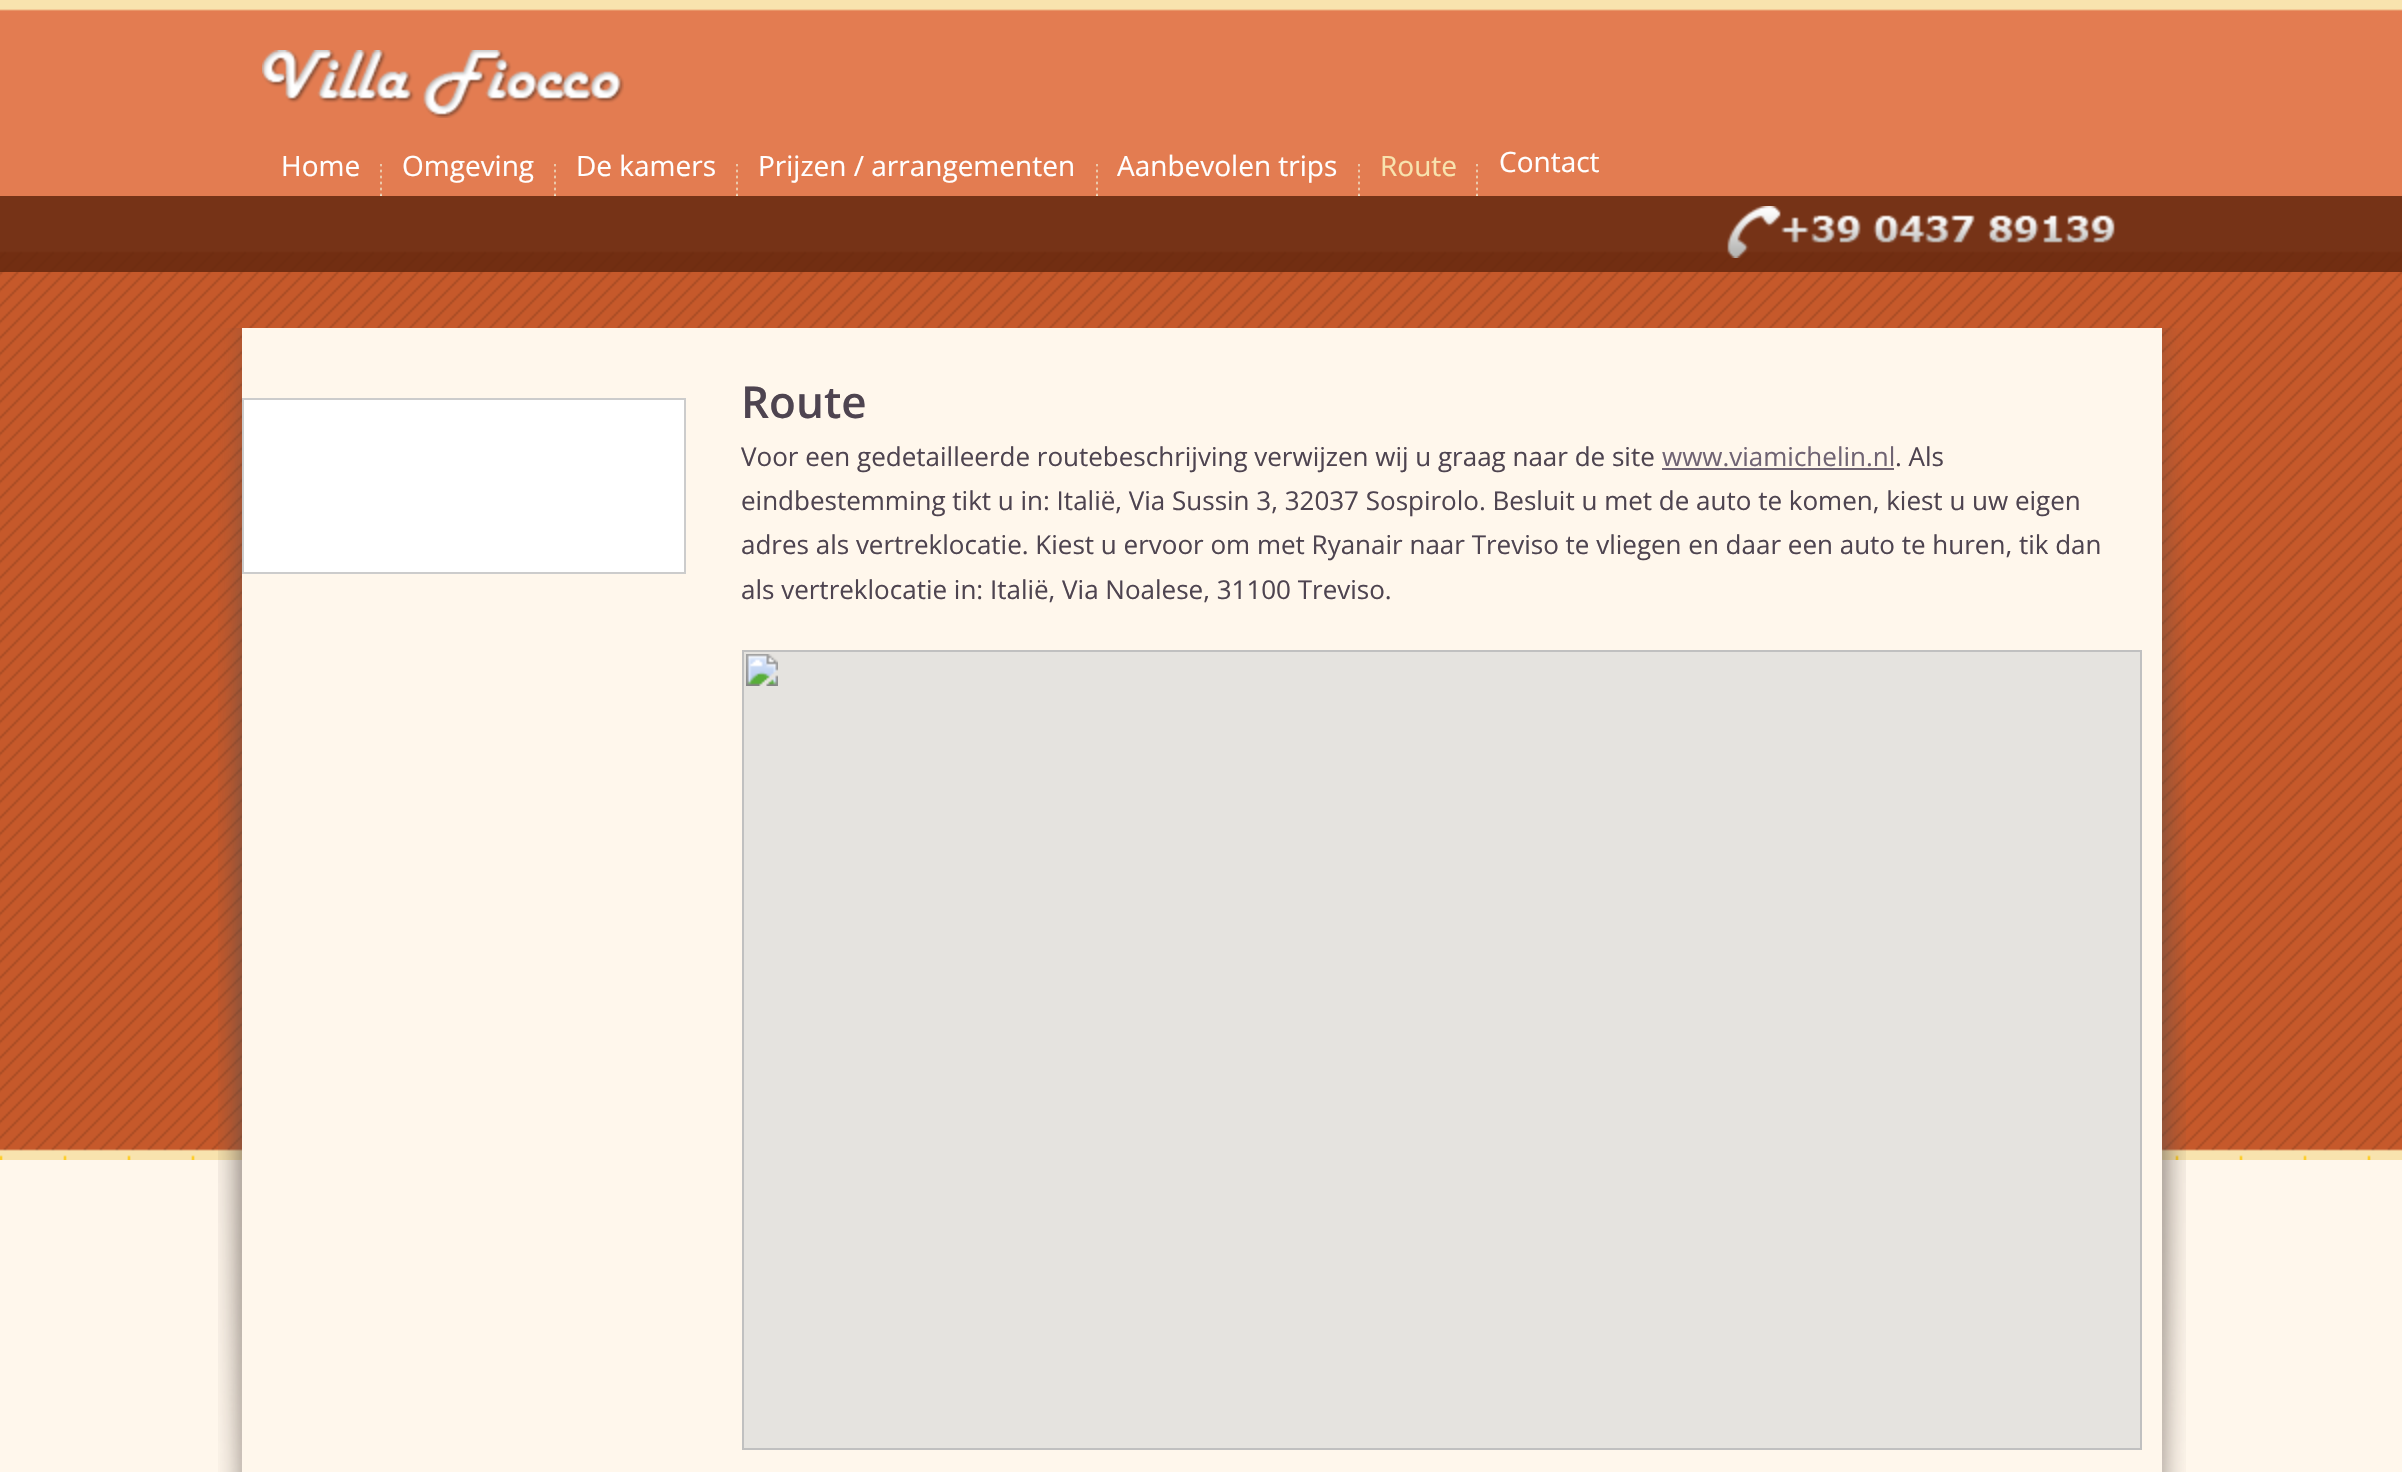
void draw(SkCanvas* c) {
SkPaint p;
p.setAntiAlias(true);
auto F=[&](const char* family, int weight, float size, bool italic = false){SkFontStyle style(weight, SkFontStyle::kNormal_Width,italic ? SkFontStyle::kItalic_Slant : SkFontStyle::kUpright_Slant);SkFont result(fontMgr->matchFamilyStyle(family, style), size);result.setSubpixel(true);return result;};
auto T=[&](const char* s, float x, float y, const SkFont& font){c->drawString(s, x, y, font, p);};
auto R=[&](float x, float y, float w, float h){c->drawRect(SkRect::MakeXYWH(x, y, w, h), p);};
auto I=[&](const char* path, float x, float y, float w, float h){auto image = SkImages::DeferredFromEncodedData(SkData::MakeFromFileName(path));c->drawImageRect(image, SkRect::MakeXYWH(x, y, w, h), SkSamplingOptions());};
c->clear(0xfffff7ec);
I("1.png",0,0,2402,1160);
I("2.png",262,50,362,68);
auto f1 = F("Open Sans",400,28);
p.setColor(0xffffffff);
T("Home",281,176,f1);
I("3.png",380,164,2,32);
T("Omgeving",402,176,f1);
I("3.png",554,164,2,32);
T("De kamers",576,176,f1);
I("3.png",736,164,2,32);
T("Prijzen / arrangementen",758,176,f1);
I("3.png",1096,164,2,32);
T("Aanbevolen trips",1117,176,f1);
I("3.png",1358,164,2,32);
p.setColor(0xfff8e3ae);
T("Route",1380,176,f1);
I("3.png",1476,164,2,32);
p.setColor(0xffffffff);
T("Contact",1499,172,f1);
p.setColor(0xdb64260d);
R(0,196,2402,76);
I("4.png",1727,206,388,52);
I("5.png",218,328,24,1144);
p.setColor(0xfffff7ec);
R(242,328,1920,832);
p.setColor(0xffffffff);
c->drawRect(SkRect::MakeXYWH(243,399,442,174),p);
p.setStroke(true);
p.setStrokeWidth(2);
p.setColor(0xffcccccc);
c->drawRect(SkRect::MakeXYWH(243,399,442,174),p);
auto f2 = F("Open Sans",600,44);
p.setStroke(false);
p.setColor(0xff4e4450);
T("Route",741,418,f2);
auto f3 = F("Open Sans",400,26);
T("Voor een gedetailleerde routebeschrijving verwijzen wij u graag naar de site",741,466,f3);
p.setColor(0xff706473);
T("www.viamichelin.nl",1662,466,f3);
R(1662,468,232,2);
p.setColor(0xff4e4450);
T(". Als",1895,466,f3);
T("eindbestemming tikt u in: Italië, Via Sussin 3, 32037 Sospirolo. Besluit u met de auto te komen, kiest u uw eigen",741,510,f3);
T("adres als vertreklocatie. Kiest u ervoor om met Ryanair naar Treviso te vliegen en daar een auto te huren, tik dan",741,554,f3);
T("als vertreklocatie in: Italië, Via Noalese, 31100 Treviso.",741,599,f3);
I("6.png",742,650,1400,800);
I("7.png",2162,328,24,1144);
}
